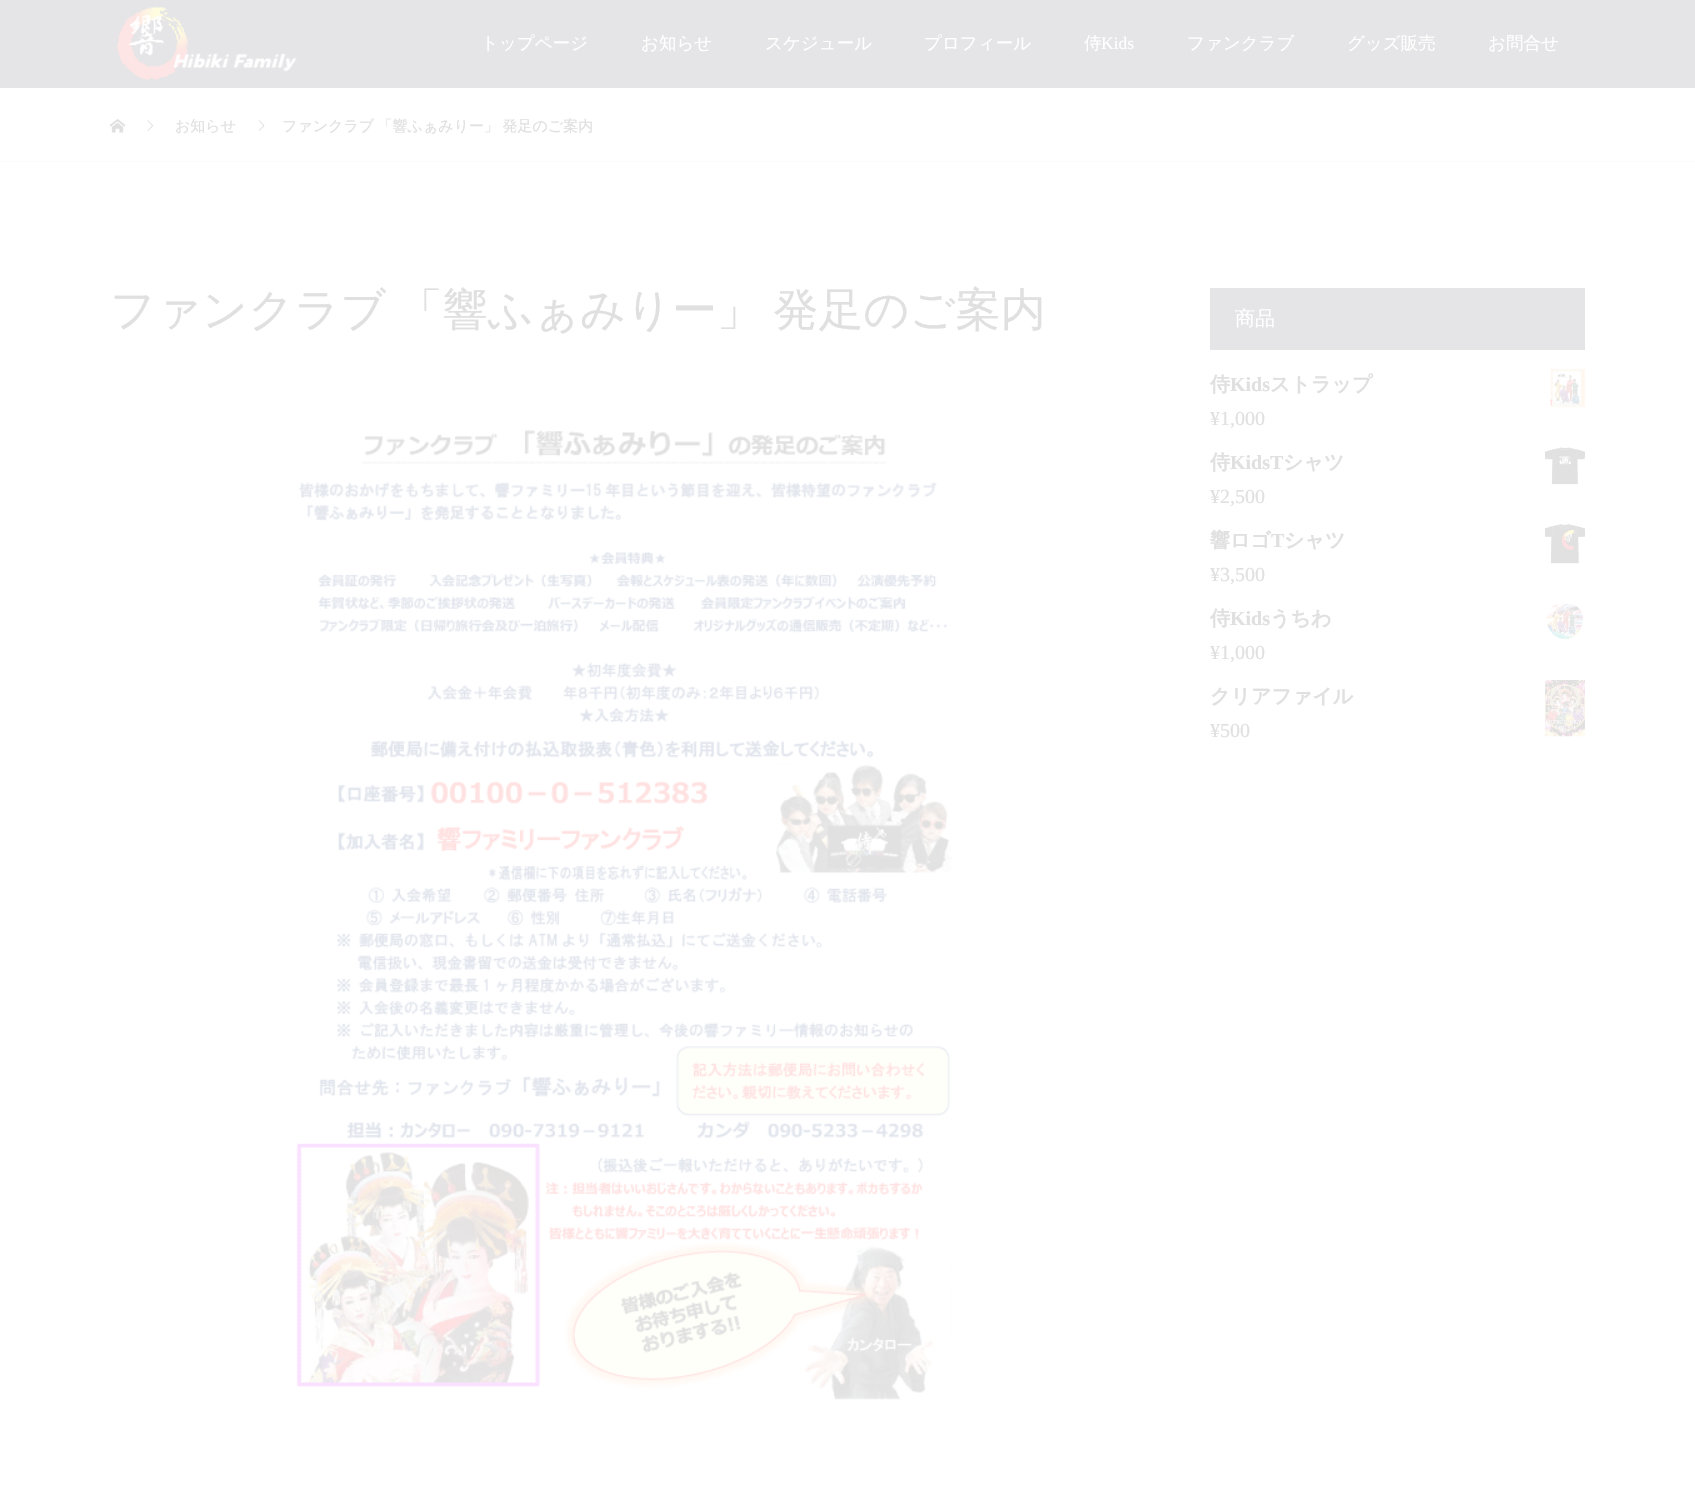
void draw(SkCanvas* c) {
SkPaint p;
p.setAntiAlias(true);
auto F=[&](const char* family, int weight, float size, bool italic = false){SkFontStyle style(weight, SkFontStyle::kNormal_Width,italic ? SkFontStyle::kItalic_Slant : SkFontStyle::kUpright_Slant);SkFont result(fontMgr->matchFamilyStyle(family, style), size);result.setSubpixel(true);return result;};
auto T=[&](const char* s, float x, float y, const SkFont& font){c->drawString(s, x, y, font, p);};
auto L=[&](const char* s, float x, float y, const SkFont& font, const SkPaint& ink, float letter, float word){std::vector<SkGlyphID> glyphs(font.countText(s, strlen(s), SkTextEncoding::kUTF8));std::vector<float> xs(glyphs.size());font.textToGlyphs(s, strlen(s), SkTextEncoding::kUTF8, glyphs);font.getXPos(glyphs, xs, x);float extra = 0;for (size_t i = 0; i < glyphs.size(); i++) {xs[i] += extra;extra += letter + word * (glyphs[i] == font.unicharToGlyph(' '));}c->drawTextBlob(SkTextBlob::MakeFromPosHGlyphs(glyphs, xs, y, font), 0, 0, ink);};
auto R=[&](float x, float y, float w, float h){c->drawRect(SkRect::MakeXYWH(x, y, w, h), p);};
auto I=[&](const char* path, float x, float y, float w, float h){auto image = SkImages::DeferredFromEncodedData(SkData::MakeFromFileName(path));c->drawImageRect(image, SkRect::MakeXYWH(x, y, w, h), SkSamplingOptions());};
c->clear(0xffffffff);
p.setColor(0xffe5e5e7);
R(0,0,1695,88);
I("1.png",113,6,184,75);
auto f1 = F("WenQuanYi Zen Hei",500,17.5);
p.setColor(0xffffffff);
T("トップページ",481,49,f1);
T("お知らせ",641,49,f1);
T("スケジュール",765,49,f1);
T("プロフィール",924,49,f1);
T("侍",1084,49,f1);
auto f2 = F("Liberation Serif",400,17.5);
T("Kids",1101,49,f2);
T("ファンクラブ",1187,49,f1);
T("グッズ販売",1347,49,f1);
T("お問合せ",1488,49,f1);
p.setColor(0xfffbfbfb);
R(0,161,1695,1);
I("2.png",110,119,15,14);
I("3.png",147,120,7,11);
auto f3 = F("WenQuanYi Zen Hei",500,15);
p.setColor(0xffe0e0e0);
T("お知らせ",175,131,f3);
I("4.png",258,120,7,11);
L("ファンクラブ 「響ふぁみりー」 発足のご案内",282,131,f3,p,0,-1);
auto f4 = F("WenQuanYi Zen Hei",500,45);
L("ファンクラブ 「響ふぁみりー」 発足のご案内",110,325,f4,p,0,-2);
I("5.png",296,429,656,972);
p.setColor(0xffe5e5e7);
R(1210,288,375,62);
auto f5 = F("WenQuanYi Zen Hei",500,20);
p.setColor(0xffffffff);
T("商品",1235,325,f5);
auto f6 = F("WenQuanYi Zen Hei",700,20);
p.setColor(0xffe0e0e0);
T("侍",1210,391,f6);
auto f7 = F("Liberation Serif",700,20);
T("Kids",1230,391,f7);
T("ストラップ",1270,391,f6);
I("6.png",1549,367,36,41);
auto f8 = F("Liberation Serif",400,20);
T("¥1,000",1210,425,f8);
T("侍",1210,469,f6);
T("KidsT",1230,469,f7);
T("シャツ",1283,469,f6);
I("7.png",1545,447,40,38);
T("¥2,500",1210,503,f8);
T("響ロゴ",1210,547,f6);
T("T",1271,547,f7);
T("シャツ",1284,547,f6);
I("8.png",1545,523,40,41);
T("¥3,500",1210,581,f8);
T("侍",1210,625,f6);
T("Kids",1230,625,f7);
T("うちわ",1270,625,f6);
I("9.png",1546,603,38,36);
T("¥1,000",1210,659,f8);
T("クリアファイル",1210,703,f6);
I("10.png",1545,680,40,57);
T("¥500",1210,737,f8);
}
